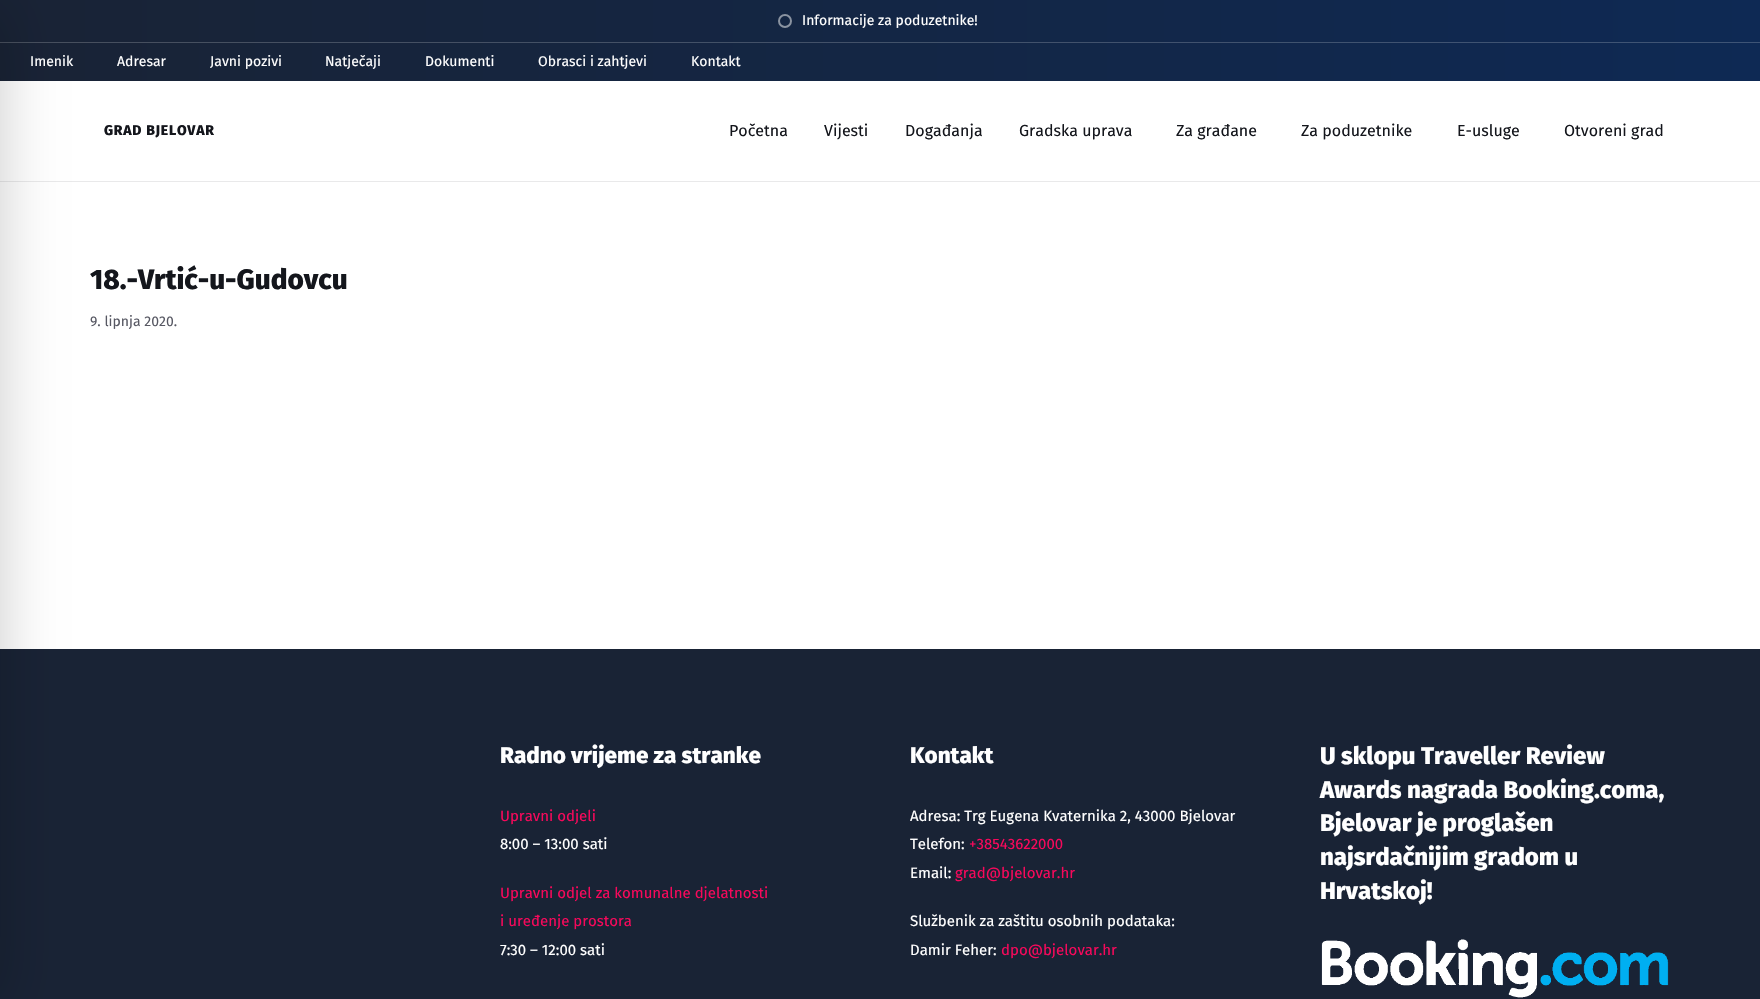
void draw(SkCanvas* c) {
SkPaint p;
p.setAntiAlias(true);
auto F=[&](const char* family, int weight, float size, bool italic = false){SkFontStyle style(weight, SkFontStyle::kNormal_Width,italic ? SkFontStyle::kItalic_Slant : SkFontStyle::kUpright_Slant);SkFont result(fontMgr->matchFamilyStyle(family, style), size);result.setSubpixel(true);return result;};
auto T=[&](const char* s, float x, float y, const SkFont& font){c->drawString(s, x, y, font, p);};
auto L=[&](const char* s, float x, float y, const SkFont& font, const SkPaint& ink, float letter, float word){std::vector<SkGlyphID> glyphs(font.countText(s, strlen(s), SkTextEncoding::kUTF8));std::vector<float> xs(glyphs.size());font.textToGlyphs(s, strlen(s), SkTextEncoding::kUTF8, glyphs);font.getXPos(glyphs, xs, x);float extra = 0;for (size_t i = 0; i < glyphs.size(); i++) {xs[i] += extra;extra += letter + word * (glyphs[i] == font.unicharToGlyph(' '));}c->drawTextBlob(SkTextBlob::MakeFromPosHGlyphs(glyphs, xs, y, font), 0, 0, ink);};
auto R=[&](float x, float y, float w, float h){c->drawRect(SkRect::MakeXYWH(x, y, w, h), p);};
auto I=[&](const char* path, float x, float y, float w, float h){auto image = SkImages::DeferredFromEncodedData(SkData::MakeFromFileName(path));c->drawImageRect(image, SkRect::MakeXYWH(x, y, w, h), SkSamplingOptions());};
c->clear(0xffffffff);
p.setColor(0xffe9e9ea);
R(0,181,1760,1);
{
const SkColor colors[] = {0xff192335,0xff0e2954};
const float stops[] = {0,1};
const SkPoint ends[] = {{0,2.5}, {1760,2.5}};
p.setShader(SkGradientShader::MakeLinear(ends, colors, stops, 2, SkTileMode::kClamp));
p.setAlpha(255);
}
R(0,0,1760,5);
{
const SkColor colors[] = {0xff192335,0xff0e2954};
const float stops[] = {0,1};
const SkPoint ends[] = {{0,24}, {1760,24}};
p.setShader(SkGradientShader::MakeLinear(ends, colors, stops, 2, SkTileMode::kClamp));
p.setAlpha(255);
}
R(0,5,1760,37);
{
const SkColor colors[] = {0xff474f5d,0xff3e5476};
const float stops[] = {0,1};
const SkPoint ends[] = {{0,24}, {1760,24}};
p.setShader(SkGradientShader::MakeLinear(ends, colors, stops, 2, SkTileMode::kClamp));
p.setAlpha(255);
}
R(0,42,1760,1);
{
const SkColor colors[] = {0xff192335,0xff0e2954};
const float stops[] = {0,1};
const SkPoint ends[] = {{0,62}, {1760,62}};
p.setShader(SkGradientShader::MakeLinear(ends, colors, stops, 2, SkTileMode::kClamp));
p.setAlpha(255);
}
R(0,43,1760,38);
p.setShader(nullptr);
p.setColor(0xff192335);
R(0,649,1760,350);
p.setColor(0x33000000);
p.setMaskFilter(SkMaskFilter::MakeBlur(kNormal_SkBlurStyle, 30));
c->drawRect(SkRect::MakeXYWH(-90,10,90,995),p);
p.setMaskFilter(nullptr);
p.setStroke(true);
p.setStrokeWidth(2);
p.setColor(0xff8a93a1);
c->drawCircle(785,21,6,p);
auto f1 = F("Fira Sans",400,14);
p.setStroke(false);
p.setColor(0xffffffff);
T("Informacije za poduzetnike!",802,25,f1);
T("Imenik",30,66,f1);
T("Adresar",117,66,f1);
T("Javni pozivi",210,66,f1);
T("Natječaji",325,66,f1);
T("Dokumenti",425,66,f1);
T("Obrasci i zahtjevi",538,66,f1);
T("Kontakt",691,66,f1);
auto f2 = F("Fira Sans",800,14);
p.setColor(0xff14161c);
L("GRAD BJELOVAR",104,135,f2,p,.75,0);
auto f3 = F("Fira Sans",400,16);
T("Početna",729,136,f3);
T("Vijesti",824,136,f3);
T("Događanja",905,136,f3);
T("Gradska uprava",1019,136,f3);
T("Za građane",1176,136,f3);
T("Za poduzetnike",1301,136,f3);
T("E-usluge",1457,136,f3);
T("Otvoreni grad",1564,136,f3);
auto f4 = F("Fira Sans",800,28);
T("18.-Vrtić-u-Gudovcu",90,289,f4);
p.setColor(0xff575863);
T("9. lipnja 2020.",90,326,f1);
auto f5 = F("Fira Sans",800,22.5);
p.setColor(0xffffffff);
T("Radno vrijeme za stranke",500,763,f5);
auto f6 = F("Fira Sans",400,15);
p.setColor(0xfff7085b);
T("Upravni odjeli",500,821,f6);
p.setColor(0xffffffff);
T("8:00 – 13:00 sati",500,849,f6);
p.setColor(0xfff7085b);
T("Upravni odjel za komunalne djelatnosti",500,898,f6);
T("i uređenje prostora",500,926,f6);
p.setColor(0xffffffff);
T("7:30 – 12:00 sati",500,955,f6);
T("Kontakt",910,763,f5);
T("Adresa: Trg Eugena Kvaternika 2, 43000 Bjelovar",910,821,f6);
T("Telefon:",910,849,f6);
p.setColor(0xfff7085b);
T("+38543622000",969,849,f6);
p.setColor(0xffffffff);
T("Email:",910,878,f6);
p.setColor(0xfff7085b);
T("grad@bjelovar.hr",955,878,f6);
p.setColor(0xffffffff);
T("Službenik za zaštitu osobnih podataka:",910,926,f6);
T("Damir Feher:",910,955,f6);
p.setColor(0xfff7085b);
T("dpo@bjelovar.hr",1001,955,f6);
auto f7 = F("Fira Sans",800,24);
p.setColor(0xffffffff);
T("U sklopu Traveller Review",1320,764,f7);
T("Awards nagrada Booking.coma,",1320,798,f7);
T("Bjelovar je proglašen",1320,831,f7);
T("najsrdačnijim gradom u",1320,865,f7);
T("Hrvatskoj!",1320,899,f7);
I("1.png",1321,939,348,59);
}
